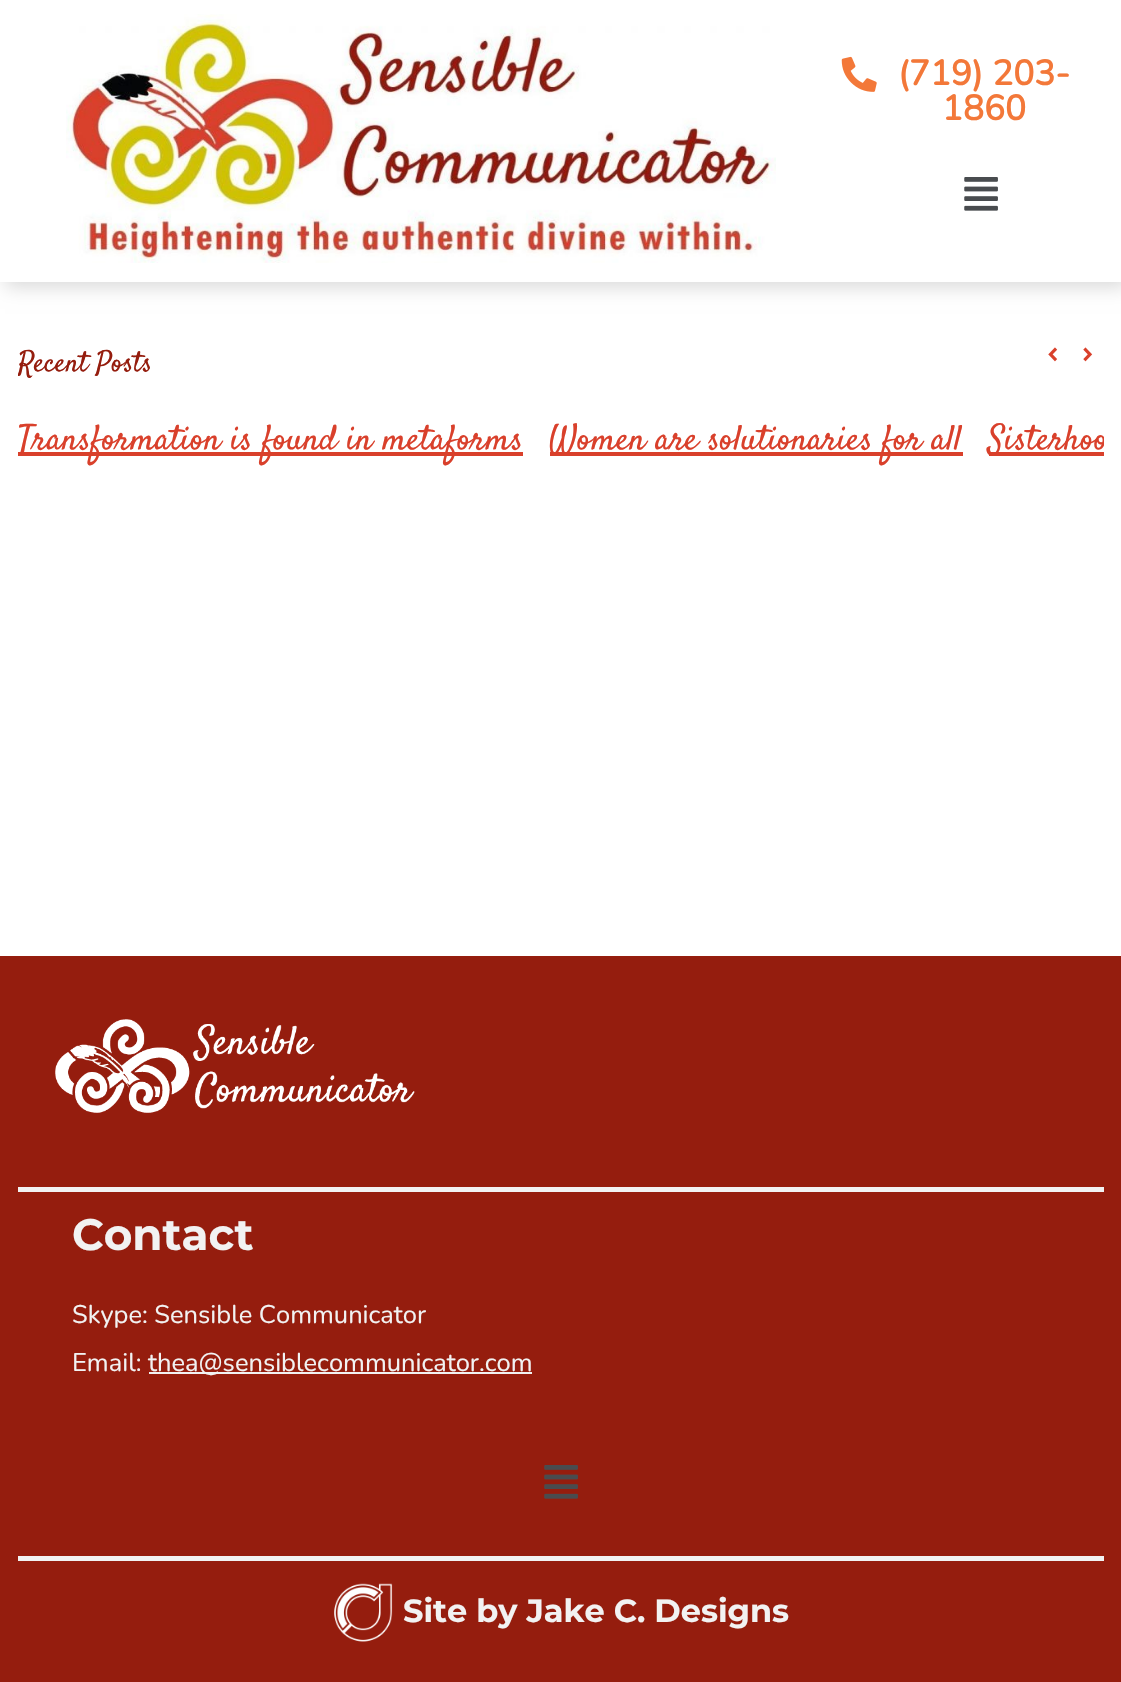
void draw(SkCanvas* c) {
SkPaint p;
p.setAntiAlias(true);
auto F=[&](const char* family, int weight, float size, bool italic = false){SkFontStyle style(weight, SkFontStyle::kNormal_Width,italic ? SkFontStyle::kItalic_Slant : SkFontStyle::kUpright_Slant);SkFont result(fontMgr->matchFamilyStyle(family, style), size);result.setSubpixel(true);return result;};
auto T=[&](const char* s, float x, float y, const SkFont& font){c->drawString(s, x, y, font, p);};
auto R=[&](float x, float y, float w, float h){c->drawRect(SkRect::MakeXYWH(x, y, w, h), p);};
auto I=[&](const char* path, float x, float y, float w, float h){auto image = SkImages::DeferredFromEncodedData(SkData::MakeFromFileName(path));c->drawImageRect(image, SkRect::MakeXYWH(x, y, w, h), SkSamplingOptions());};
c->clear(0xffffffff);
p.setColor(0x26000000);
p.setMaskFilter(SkMaskFilter::MakeBlur(kNormal_SkBlurStyle, 9));
c->drawRect(SkRect::MakeXYWH(5,5,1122,282),p);
p.setMaskFilter(nullptr);
p.setColor(0xffffffff);
R(0,0,1121,282);
I("1.png",66,14,710,249);
I("2.png",841,56,36,36);
auto f1 = F("Nunito",700,35);
p.setColor(0xfff37839);
T("(719) 203-",898,85,f1);
T("1860",942,120,f1);
I("3.png",964,177,34,34);
c->save();
c->clipRect(SkRect::MakeXYWH(18,334,1086,319));
auto f2 = F("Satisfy",400,28.75);
p.setColor(0xff951d0e);
T("Recent Posts",18,371,f2);
c->restore();
I("4.png",1048,347,10,15);
I("5.png",1083,347,10,15);
p.setColor(0xffd9402b);
R(18,452,505,4);
auto f3 = F("Satisfy",400,35);
T("Transformation is found in metaforms",18,449,f3);
R(550,452,413,4);
T("Women are solutionaries for all",549,449,f3);
R(989,452,115,4);
c->save();
c->clipRect(SkRect::MakeXYWH(18,418,1086,84));
T("Sisterhoo",988,449,f3);
c->restore();
p.setColor(0xff951d0e);
R(0,956,1121,726);
I("6.png",55,1019,360,94);
p.setColor(0xfff2f2f2);
R(18,1187,1086,5);
R(18,1556,1086,5);
auto f4 = F("Montserrat",700,43.75);
T("Contact",72,1250,f4);
auto f5 = F("Nunito",200,25.5);
T("Skype: Sensible Communicator",72,1323,f5);
T("Email:",72,1371,f5);
R(149,1372,383,2);
T("thea@sensiblecommunicator.com",148,1371,f5);
I("7.png",544,1465,34,34);
I("8.png",334,1583,59,59);
auto f6 = F("Montserrat",700,32);
T("Site by Jake C. Designs",403,1622,f6);
}
